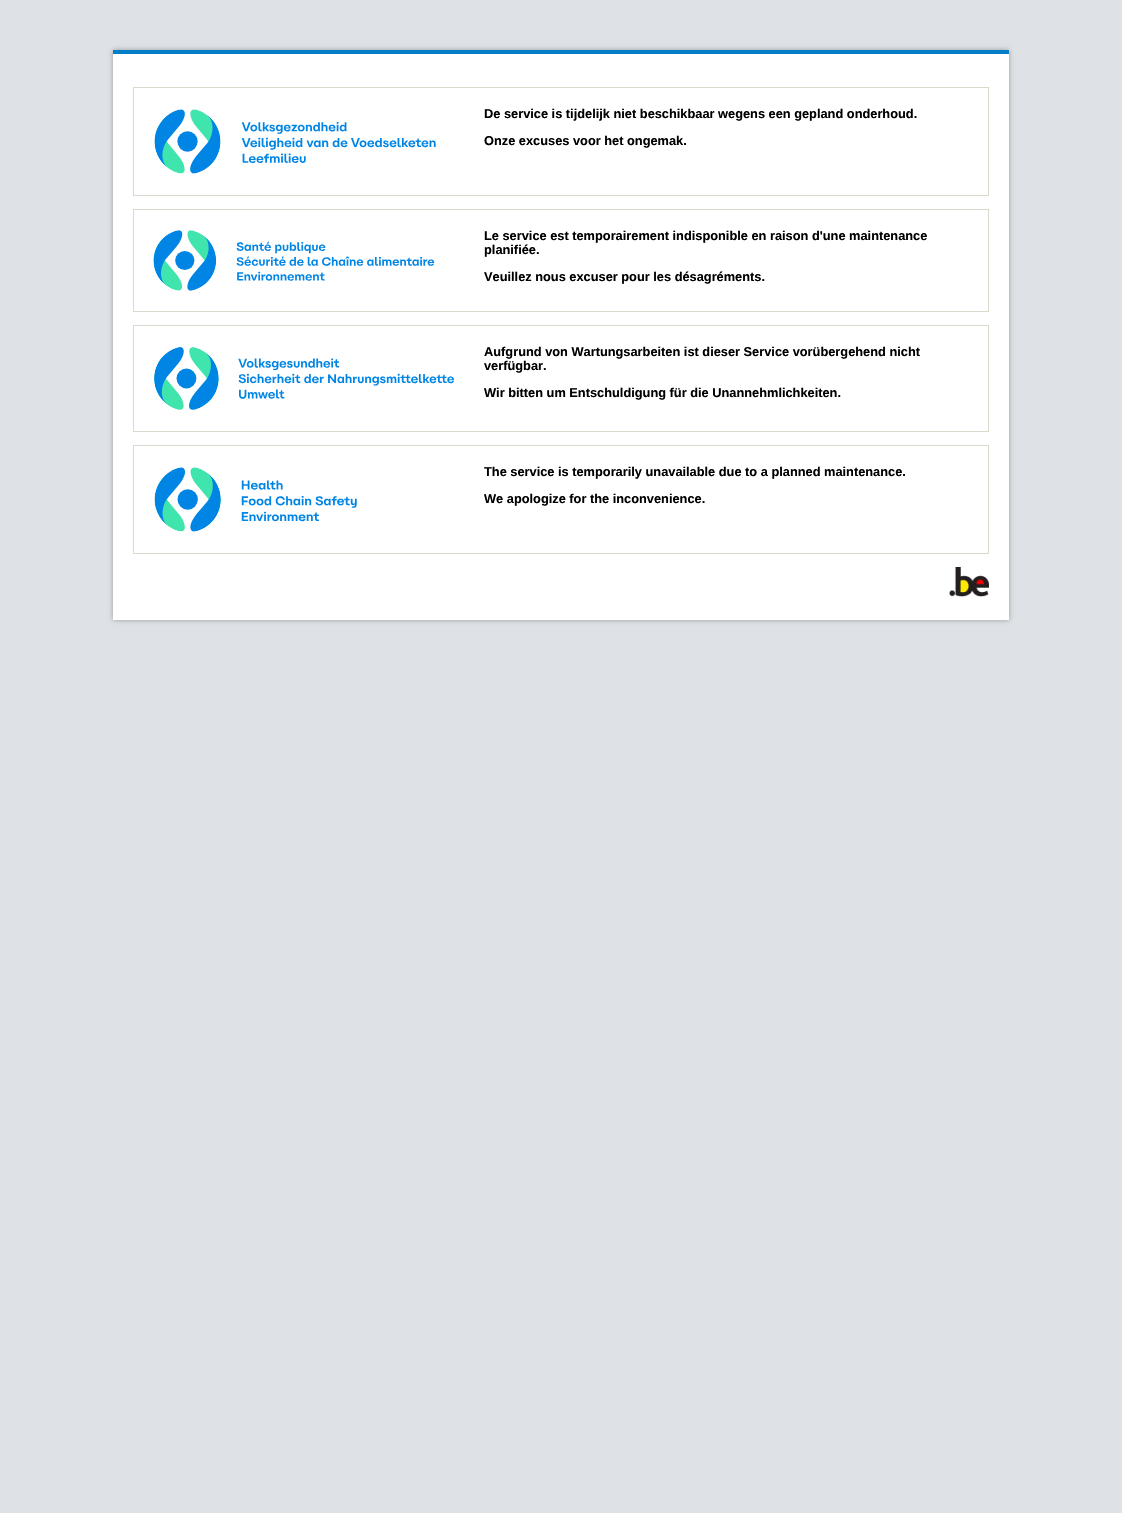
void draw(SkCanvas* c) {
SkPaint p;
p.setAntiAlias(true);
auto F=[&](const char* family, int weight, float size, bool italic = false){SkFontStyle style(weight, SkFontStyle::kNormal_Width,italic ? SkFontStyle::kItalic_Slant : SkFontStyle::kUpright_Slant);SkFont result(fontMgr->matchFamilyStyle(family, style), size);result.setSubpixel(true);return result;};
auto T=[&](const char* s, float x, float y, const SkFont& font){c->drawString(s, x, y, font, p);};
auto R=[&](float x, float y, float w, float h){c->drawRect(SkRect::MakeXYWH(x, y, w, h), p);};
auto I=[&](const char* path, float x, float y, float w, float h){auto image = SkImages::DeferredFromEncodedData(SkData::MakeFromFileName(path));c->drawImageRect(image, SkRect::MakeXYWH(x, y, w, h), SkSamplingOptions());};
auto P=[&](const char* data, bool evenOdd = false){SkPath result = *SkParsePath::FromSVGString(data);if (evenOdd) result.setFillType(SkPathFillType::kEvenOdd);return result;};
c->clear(0xffdee2e6);
p.setColor(0xffffffff);
R(113,54,896,566);
c->save();
c->clipPath(P("M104 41h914v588h-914zm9 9h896v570h-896z",true),true);
p.setColor(0xff999999);
p.setMaskFilter(SkMaskFilter::MakeBlur(kNormal_SkBlurStyle, 2.5));
c->drawRect(SkRect::MakeXYWH(113,50,896,570),p);
p.setMaskFilter(nullptr);
c->restore();
p.setColor(0xff047ec6);
R(113,50,896,4);
p.setStroke(true);
p.setStrokeWidth(1);
p.setColor(0xffd7dbcb);
c->drawRect(SkRect::MakeXYWH(133.5,87.5,855,108),p);
I("1.png",154,109,282,65);
auto f1 = F("Liberation Sans",700,12.8);
p.setStroke(false);
p.setColor(0xff000000);
T("De service is tijdelijk niet beschikbaar wegens een gepland onderhoud.",484,118,f1);
T("Onze excuses voor het ongemak.",484,145,f1);
p.setStroke(true);
p.setColor(0xffd7dbcb);
c->drawRect(SkRect::MakeXYWH(133.5,209.5,855,102),p);
I("2.png",153,230,282,61);
p.setStroke(false);
p.setColor(0xff000000);
T("Le service est temporairement indisponible en raison d'une maintenance",484,240,f1);
T("planifiée.",484,254,f1);
T("Veuillez nous excuser pour les désagréments.",484,281,f1);
p.setStroke(true);
p.setColor(0xffd7dbcb);
c->drawRect(SkRect::MakeXYWH(133.5,325.5,855,106),p);
I("3.png",154,347,300,63);
p.setStroke(false);
p.setColor(0xff000000);
T("Aufgrund von Wartungsarbeiten ist dieser Service vorübergehend nicht",484,356,f1);
T("verfügbar.",484,370,f1);
T("Wir bitten um Entschuldigung für die Unannehmlichkeiten.",484,397,f1);
p.setStroke(true);
p.setColor(0xffd7dbcb);
c->drawRect(SkRect::MakeXYWH(133.5,445.5,855,108),p);
I("4.png",154,467,203,65);
p.setStroke(false);
p.setColor(0xff000000);
T("The service is temporarily unavailable due to a planned maintenance.",484,476,f1);
T("We apologize for the inconvenience.",484,503,f1);
I("5.png",949,567,40,30);
}
